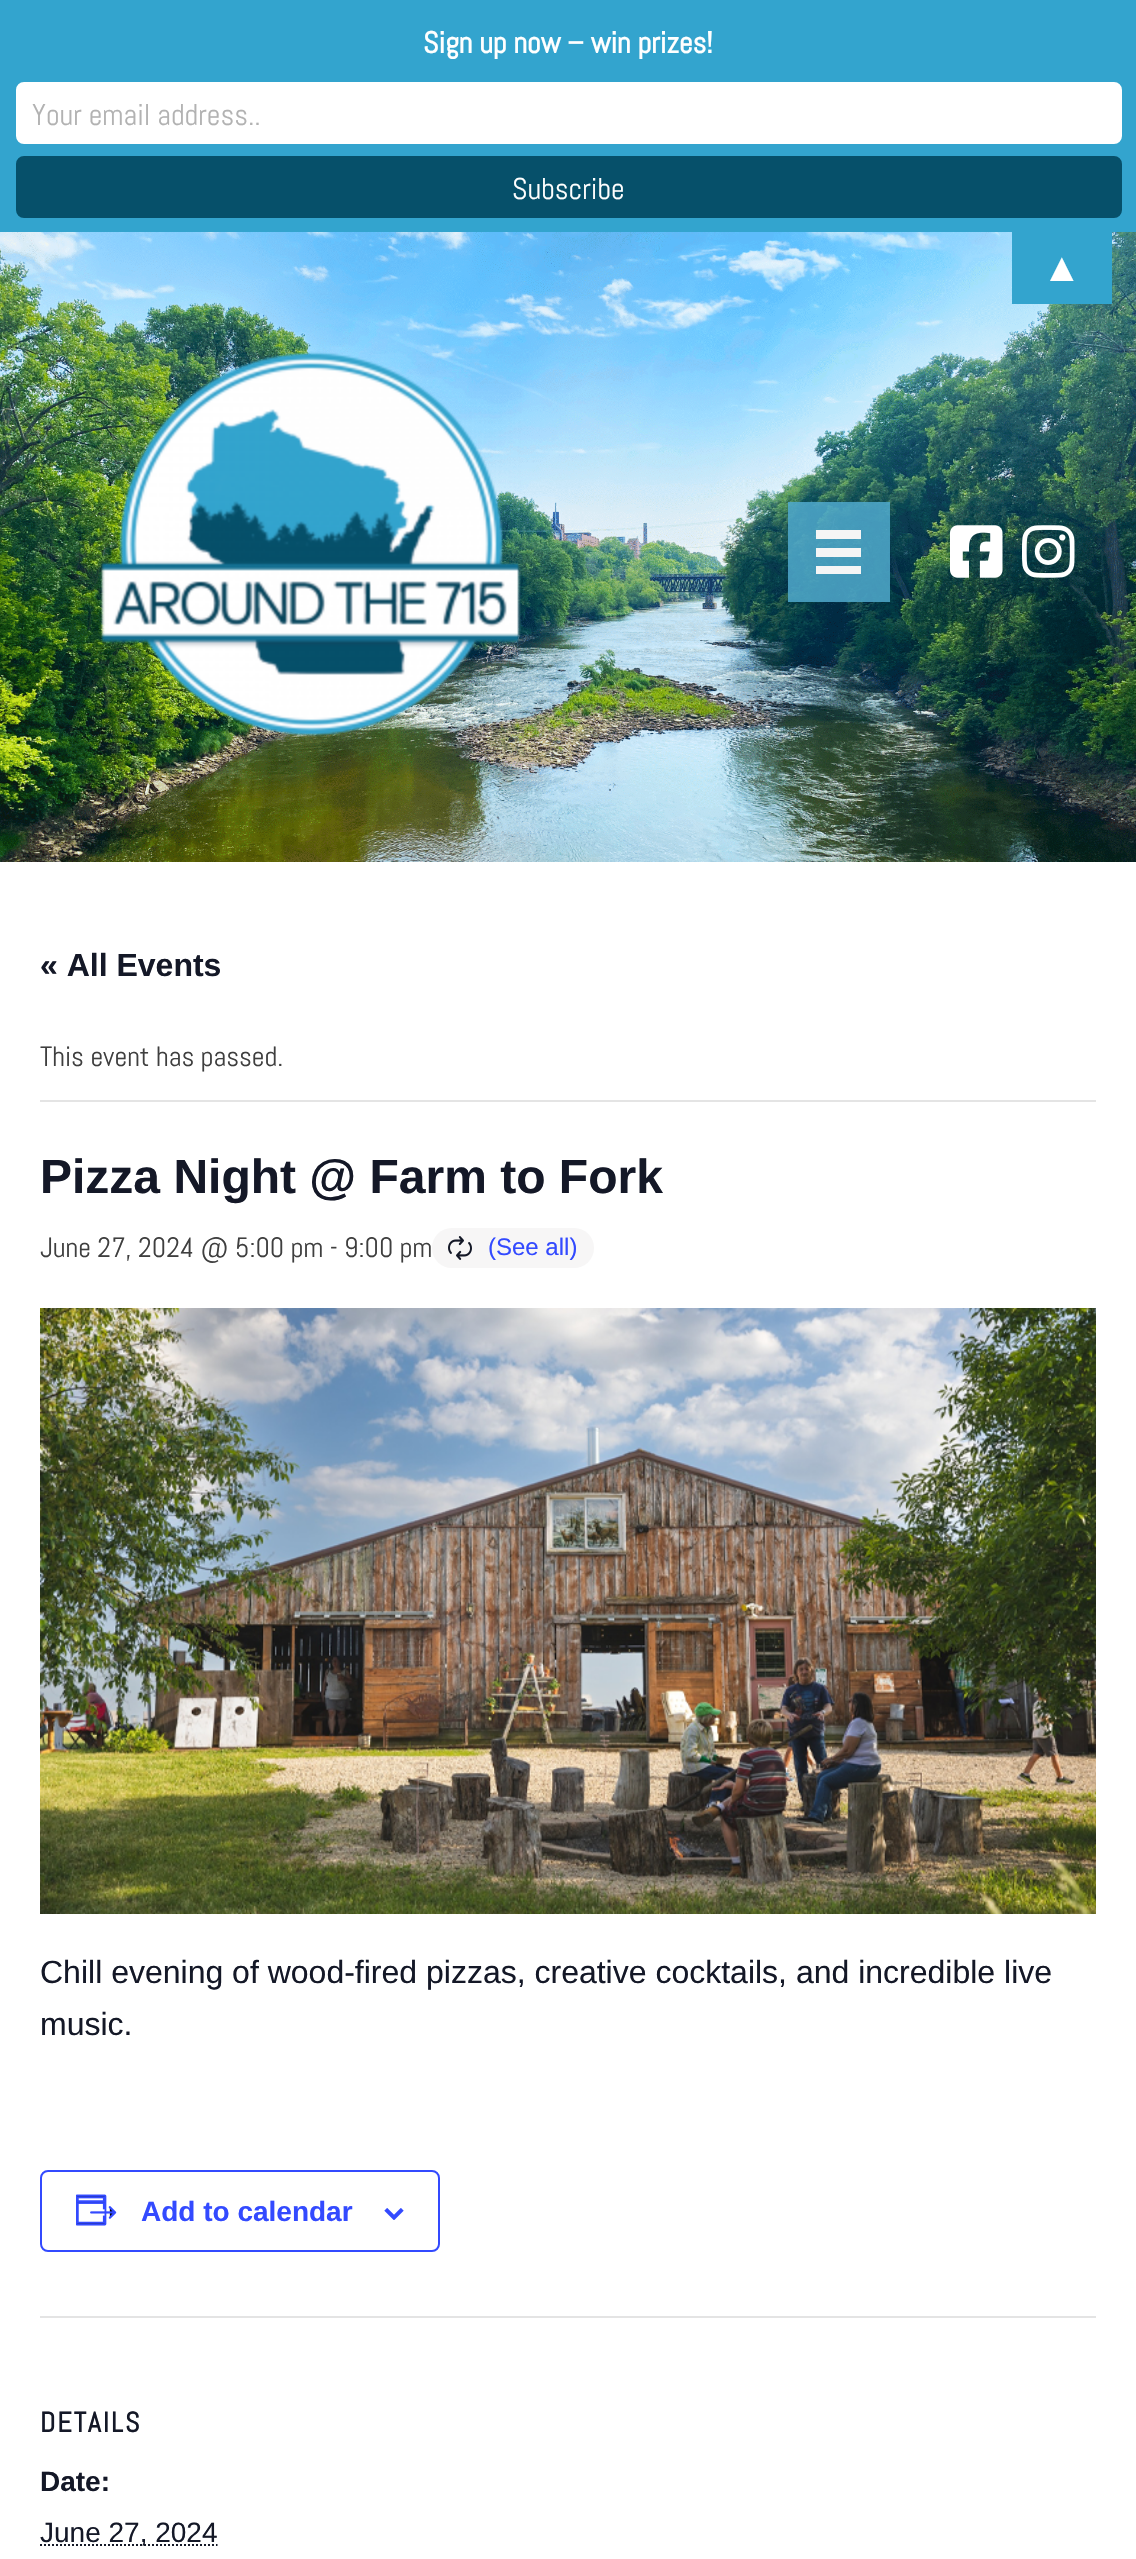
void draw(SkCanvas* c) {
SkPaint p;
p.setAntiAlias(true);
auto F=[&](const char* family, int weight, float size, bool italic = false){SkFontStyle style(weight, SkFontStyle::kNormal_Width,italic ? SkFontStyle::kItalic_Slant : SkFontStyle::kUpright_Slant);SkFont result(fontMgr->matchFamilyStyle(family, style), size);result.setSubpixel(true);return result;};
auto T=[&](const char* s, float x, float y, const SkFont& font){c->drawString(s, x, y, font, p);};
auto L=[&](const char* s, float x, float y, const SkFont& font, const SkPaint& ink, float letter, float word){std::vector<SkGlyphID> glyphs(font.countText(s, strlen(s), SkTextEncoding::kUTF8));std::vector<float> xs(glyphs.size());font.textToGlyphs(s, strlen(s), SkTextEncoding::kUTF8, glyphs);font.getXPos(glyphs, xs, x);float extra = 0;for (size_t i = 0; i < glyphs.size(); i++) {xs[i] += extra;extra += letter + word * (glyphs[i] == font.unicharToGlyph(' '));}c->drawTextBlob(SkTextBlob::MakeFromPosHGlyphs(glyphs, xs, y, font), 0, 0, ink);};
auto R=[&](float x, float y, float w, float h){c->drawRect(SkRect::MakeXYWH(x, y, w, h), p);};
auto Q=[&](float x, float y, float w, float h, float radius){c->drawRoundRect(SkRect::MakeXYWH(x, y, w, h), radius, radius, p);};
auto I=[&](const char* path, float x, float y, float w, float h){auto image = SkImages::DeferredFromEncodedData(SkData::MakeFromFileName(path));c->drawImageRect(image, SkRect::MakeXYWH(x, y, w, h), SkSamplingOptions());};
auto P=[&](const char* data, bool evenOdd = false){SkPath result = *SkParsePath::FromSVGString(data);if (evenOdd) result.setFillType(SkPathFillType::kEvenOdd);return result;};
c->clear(0xffffffff);
p.setColor(0xff33a4ce);
R(0,0,1136,232);
auto f1 = F("Abel",700,30);
p.setColor(0xffffffff);
T("Sign up now – win prizes!",423,53,f1);
c->drawRoundRect(SkRect::MakeXYWH(17,83,1104,60),7,7,p);
p.setStroke(true);
p.setStrokeWidth(2);
c->drawRoundRect(SkRect::MakeXYWH(17,83,1104,60),7,7,p);
auto f2 = F("Abel",400,30);
p.setStroke(false);
p.setColor(0xffb2b2b2);
T("Your email address..",32,125,f2);
p.setColor(0xff06506a);
c->drawRoundRect(SkRect::MakeXYWH(17,157,1104,60),7,7,p);
p.setStroke(true);
c->drawRoundRect(SkRect::MakeXYWH(17,157,1104,60),7,7,p);
p.setStroke(false);
p.setColor(0xffffffff);
T("Subscribe",512,199,f2);
I("1.png",0,232,1136,630);
p.setColor(0xff33a4ce);
R(1012,232,100,72);
auto f3 = F("Liberation Sans",400,40);
p.setColor(0xffffffff);
T("▲",1042,281,f3);
I("2.png",99,351,422,386);
p.setColor(0xd650aace);
R(788,502,102,100);
p.setColor(0xfff5f5f5);
R(816,530,45,9);
R(816,548,45,9);
R(816,566,45,8);
I("3.png",950,525,53,53);
I("4.png",1022,525,53,53);
auto f4 = F("Liberation Sans",700,32);
p.setColor(0xff141827);
T("« All Events",40,976,f4);
p.setColor(0xffe4e4e4);
R(40,1100,1056,2);
auto f5 = F("Abel",400,28);
p.setColor(0xff3f3f3f);
T("This event has passed.",40,1066,f5);
auto f6 = F("Liberation Sans",700,48);
p.setColor(0xff141827);
T("Pizza Night @ Farm to Fork",40,1193,f6);
p.setColor(0xff3f3f3f);
T("June 27, 2024 @ 5:00 pm - 9:00 pm",40,1257,f5);
p.setColor(0xfff7f6f6);
Q(432,1228,162,40,20);
I("5.png",448,1236,24,24);
auto f7 = F("Liberation Sans",400,24);
p.setColor(0xff334aff);
T("(See all)",488,1255,f7);
I("6.png",40,1308,1056,606);
auto f8 = F("Liberation Sans",400,32);
p.setColor(0xff141827);
T("Chill evening of wood-fired pizzas, creative cocktails, and incredible live",40,1983,f8);
T("music.",40,2035,f8);
p.setStroke(true);
p.setColor(0xff334aff);
c->drawRoundRect(SkRect::MakeXYWH(41,2171,398,80),7,7,p);
I("7.png",76,2194,41,32);
auto f9 = F("Liberation Sans",700,28);
p.setStroke(false);
T("Add to calendar",141,2221,f9);
I("8.png",384,2208,20,12);
p.setColor(0xffe4e4e4);
R(40,2316,1056,2);
auto f10 = F("Abel",700,28);
p.setColor(0xff141827);
L("DETAILS",40,2432,f10,p,2,0);
T("Date:",40,2491,f9);
p.setStroke(true);
p.setPathEffect(SkDashPathEffect::Make({{2,2}}, 0));
c->drawPath(P("M40 2545h177.5"),p);
p.setPathEffect(nullptr);
auto f11 = F("Liberation Sans",400,28);
p.setStroke(false);
T("June 27, 2024",40,2542,f11);
}
